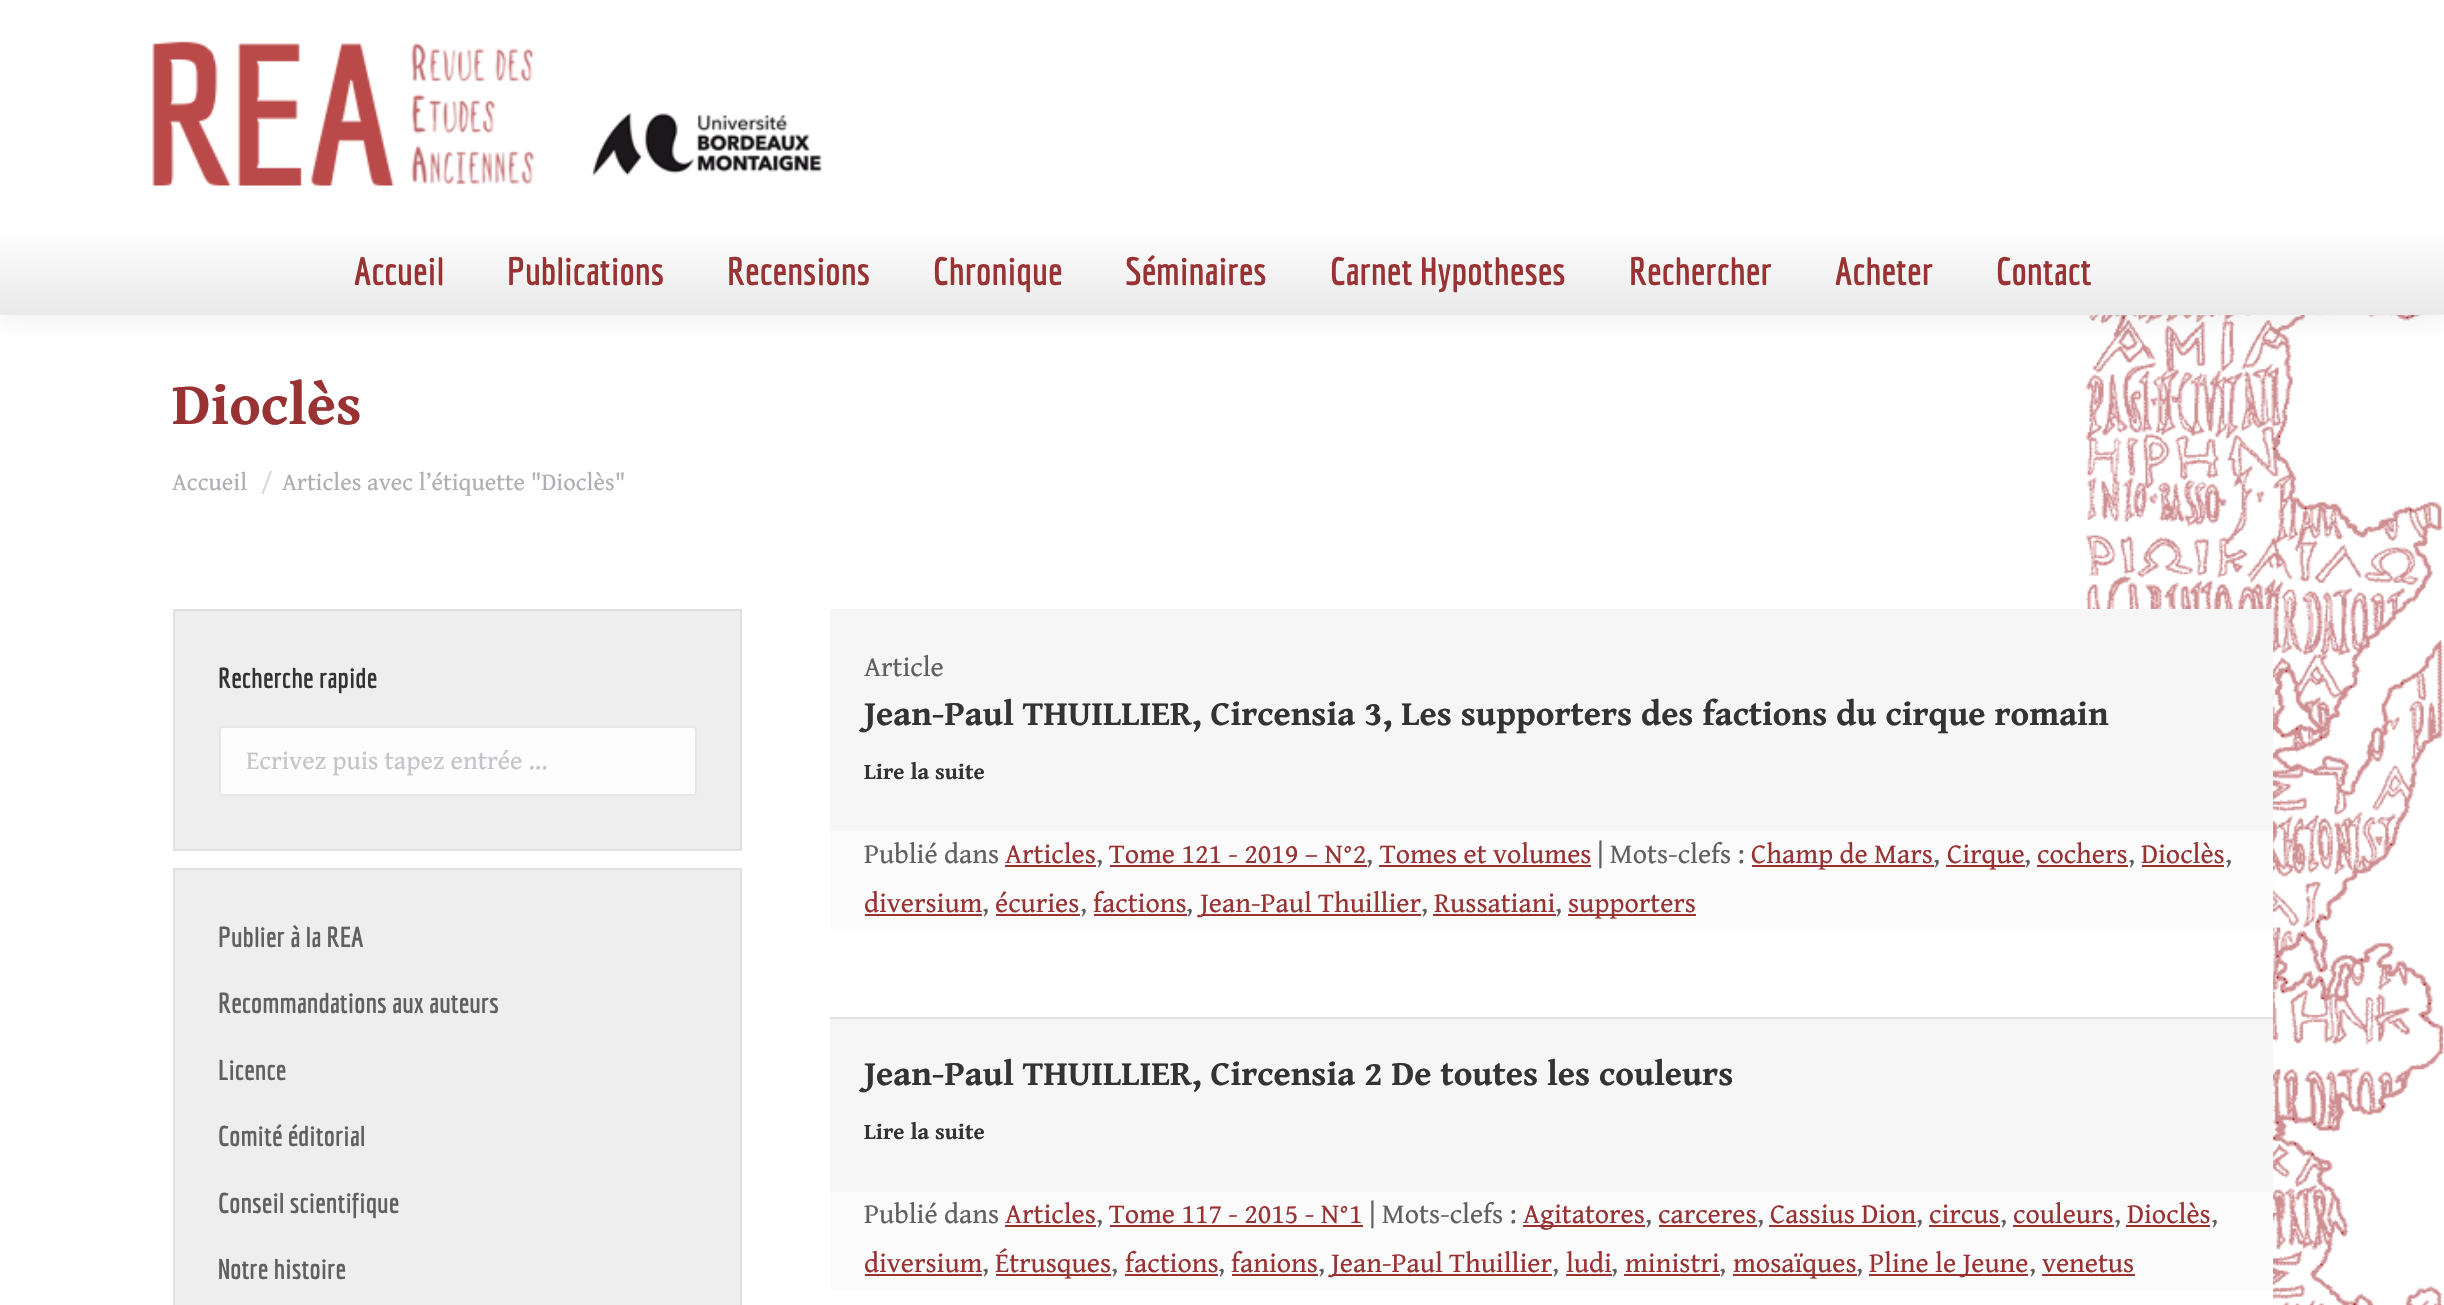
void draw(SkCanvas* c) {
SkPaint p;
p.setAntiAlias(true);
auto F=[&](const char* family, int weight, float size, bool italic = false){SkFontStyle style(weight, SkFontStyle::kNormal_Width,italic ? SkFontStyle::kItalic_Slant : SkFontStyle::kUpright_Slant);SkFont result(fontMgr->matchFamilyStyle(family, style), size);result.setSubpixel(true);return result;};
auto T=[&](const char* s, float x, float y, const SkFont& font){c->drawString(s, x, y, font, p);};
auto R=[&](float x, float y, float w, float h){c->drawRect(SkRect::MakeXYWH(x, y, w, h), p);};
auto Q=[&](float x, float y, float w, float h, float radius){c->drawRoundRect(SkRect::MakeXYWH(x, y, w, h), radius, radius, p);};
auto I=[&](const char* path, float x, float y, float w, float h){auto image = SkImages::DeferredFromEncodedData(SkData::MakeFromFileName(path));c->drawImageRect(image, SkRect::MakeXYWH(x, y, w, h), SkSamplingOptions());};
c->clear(0xffffffff);
I("1.png",2084,315,360,990);
p.setColor(0x12000000);
p.setMaskFilter(SkMaskFilter::MakeBlur(kNormal_SkBlurStyle, 13));
c->drawRect(SkRect::MakeXYWH(-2,-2,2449,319),p);
p.setMaskFilter(nullptr);
p.setColor(0xffffffff);
R(0,0,2444,228);
I("2.png",152,41,670,145);
{
const SkColor colors[] = {0xffffffff,0xffe9e9e9};
const float stops[] = {0,1};
const SkPoint ends[] = {{1223,227}, {1223,315}};
p.setShader(SkGradientShader::MakeLinear(ends, colors, stops, 2, SkTileMode::kClamp));
p.setAlpha(255);
}
R(0,228,2444,87);
auto f1 = F("Economica",700,38.5);
p.setShader(nullptr);
p.setColor(0xff993333);
T("Accueil",354,285,f1);
T("Publications",507,285,f1);
T("Recensions",727,285,f1);
T("Chronique",933,285,f1);
T("Séminaires",1125,285,f1);
T("Carnet Hypotheses",1330,285,f1);
T("Rechercher",1629,285,f1);
T("Acheter",1835,285,f1);
T("Contact",1996,285,f1);
auto f2 = F("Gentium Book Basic",700,59.5);
T("Dioclès",172,424,f2);
auto f3 = F("Gentium Book Basic",400,24.5);
p.setColor(0xffadafb3);
T("Accueil",172,490,f3);
p.setColor(0xffd6d7d9);
T("/",261,490,f3);
p.setColor(0xffadafb3);
T("Articles avec l’étiquette \"Dioclès\"",282,490,f3);
p.setColor(0xffeeeeee);
c->drawRect(SkRect::MakeXYWH(174,610,567,240),p);
p.setStroke(true);
p.setStrokeWidth(2);
p.setColor(0xffe0e0e0);
c->drawRect(SkRect::MakeXYWH(174,610,567,240),p);
auto f4 = F("Economica",700,28);
p.setStroke(false);
p.setColor(0xff333333);
T("Recherche rapide",218,688,f4);
p.setColor(0xfffdfdfd);
Q(219,726,478,70,4);
p.setStroke(true);
p.setColor(0x1c333333);
c->drawRoundRect(SkRect::MakeXYWH(220,727,476,68),3,3,p);
c->save();
c->clipRect(SkRect::MakeXYWH(247,747,422,30));
auto f5 = F("Gentium Book Basic",400,26.25);
p.setStroke(false);
p.setColor(0xffc4c5c9);
T("Ecrivez puis tapez entrée ...",246,769,f5);
c->restore();
p.setColor(0xffeeeeee);
c->drawRect(SkRect::MakeXYWH(174,869,567,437),p);
p.setStroke(true);
p.setColor(0xffe0e0e0);
c->drawRect(SkRect::MakeXYWH(174,869,567,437),p);
p.setStroke(false);
p.setColor(0xff606060);
T("Publier à la REA",218,947,f4);
T("Recommandations aux auteurs",218,1013,f4);
T("Licence",218,1080,f4);
T("Comité éditorial",218,1146,f4);
T("Conseil scientifique",218,1213,f4);
T("Notre histoire",218,1279,f4);
p.setColor(0xffffffff);
R(2084,929,189,376);
p.setColor(0xfff6f6f6);
R(830,609,1443,222);
auto f6 = F("Gentium Book Basic",400,28);
p.setColor(0xff606060);
T("Article",864,676,f6);
auto f7 = F("Gentium Book Basic",700,35);
p.setColor(0xff333333);
T("Jean-Paul THUILLIER, Circensia 3, Les supporters des factions du cirque romain",864,725,f7);
auto f8 = F("Gentium Book Basic",700,22.75);
T("Lire la suite",864,779,f8);
p.setColor(0xfffbfbfb);
R(830,831,1443,98);
p.setColor(0xff606060);
T("Publié dans",864,863,f6);
p.setColor(0xff993333);
T("Articles",1005,863,f6);
R(1005,865,91,2);
p.setColor(0xff606060);
T(",",1096,863,f6);
p.setColor(0xff993333);
T("Tome 121 - 2019 – N°2",1109,863,f6);
R(1110,865,257,2);
p.setColor(0xff606060);
T(",",1366,863,f6);
p.setColor(0xff993333);
T("Tomes et volumes",1380,863,f6);
R(1379,865,212,2);
p.setColor(0xff606060);
T("| Mots-clefs :",1597,863,f6);
p.setColor(0xff993333);
R(1752,865,182,2);
T("Champ de Mars",1751,863,f6);
p.setColor(0xff606060);
T(",",1933,863,f6);
p.setColor(0xff993333);
R(1946,865,79,2);
T("Cirque",1947,863,f6);
p.setColor(0xff606060);
T(",",2024,863,f6);
p.setColor(0xff993333);
T("cochers",2037,863,f6);
R(2037,865,91,2);
p.setColor(0xff606060);
T(",",2128,863,f6);
p.setColor(0xff993333);
T("Dioclès",2141,863,f6);
R(2142,865,82,2);
p.setColor(0xff606060);
T(",",2225,863,f6);
p.setColor(0xff993333);
T("diversium",864,912,f6);
R(865,914,117,2);
p.setColor(0xff606060);
T(",",982,912,f6);
p.setColor(0xff993333);
T("écuries",995,912,f6);
R(996,914,84,2);
p.setColor(0xff606060);
T(",",1080,912,f6);
p.setColor(0xff993333);
T("factions",1093,912,f6);
R(1094,914,93,2);
p.setColor(0xff606060);
T(",",1186,912,f6);
p.setColor(0xff993333);
R(1201,914,220,2);
T("Jean-Paul Thuillier",1200,912,f6);
p.setColor(0xff606060);
T(",",1421,912,f6);
p.setColor(0xff993333);
T("Russatiani",1434,912,f6);
R(1433,914,123,2);
p.setColor(0xff606060);
T(",",1555,912,f6);
p.setColor(0xff993333);
R(1568,914,128,2);
T("supporters",1568,912,f6);
p.setColor(0xfff6f6f6);
R(830,1019,1443,173);
p.setColor(0xffe2e2e2);
R(830,1017,1443,2);
p.setColor(0xff333333);
T("Jean-Paul THUILLIER, Circensia 2 De toutes les couleurs",864,1085,f7);
T("Lire la suite",864,1139,f8);
p.setColor(0xfffbfbfb);
R(830,1192,1443,98);
p.setColor(0xff606060);
T("Publié dans",864,1223,f6);
p.setColor(0xff993333);
T("Articles",1005,1223,f6);
R(1005,1225,91,2);
p.setColor(0xff606060);
T(",",1096,1223,f6);
p.setColor(0xff993333);
T("Tome 117 - 2015 - N°1",1109,1223,f6);
R(1110,1225,253,2);
p.setColor(0xff606060);
T("| Mots-clefs :",1369,1223,f6);
p.setColor(0xff993333);
R(1523,1225,122,2);
T("Agitatores",1523,1223,f6);
p.setColor(0xff606060);
T(",",1645,1223,f6);
p.setColor(0xff993333);
T("carceres",1658,1223,f6);
R(1659,1225,98,2);
p.setColor(0xff606060);
T(",",1757,1223,f6);
p.setColor(0xff993333);
T("Cassius Dion",1770,1223,f6);
R(1769,1225,147,2);
p.setColor(0xff606060);
T(",",1916,1223,f6);
p.setColor(0xff993333);
T("circus",1929,1223,f6);
R(1929,1225,71,2);
p.setColor(0xff606060);
T(",",2000,1223,f6);
p.setColor(0xff993333);
T("couleurs",2013,1223,f6);
R(2013,1225,101,2);
p.setColor(0xff606060);
T(",",2114,1223,f6);
p.setColor(0xff993333);
T("Dioclès",2127,1223,f6);
R(2126,1225,84,2);
p.setColor(0xff606060);
T(",",2211,1223,f6);
p.setColor(0xff993333);
T("diversium",864,1272,f6);
R(865,1274,117,2);
p.setColor(0xff606060);
T(",",982,1272,f6);
p.setColor(0xff993333);
R(996,1274,115,2);
T("Étrusques",995,1272,f6);
p.setColor(0xff606060);
T(",",1111,1272,f6);
p.setColor(0xff993333);
T("factions",1125,1272,f6);
R(1125,1274,93,2);
p.setColor(0xff606060);
T(",",1218,1272,f6);
p.setColor(0xff993333);
T("fanions",1231,1272,f6);
R(1232,1274,86,2);
p.setColor(0xff606060);
T(",",1318,1272,f6);
p.setColor(0xff993333);
R(1332,1274,220,2);
T("Jean-Paul Thuillier",1331,1272,f6);
p.setColor(0xff606060);
T(",",1552,1272,f6);
p.setColor(0xff993333);
T("ludi",1566,1272,f6);
R(1566,1274,46,2);
p.setColor(0xff606060);
T(",",1611,1272,f6);
p.setColor(0xff993333);
T("ministri",1625,1272,f6);
R(1624,1274,96,2);
p.setColor(0xff606060);
T(",",1719,1272,f6);
p.setColor(0xff993333);
R(1733,1274,124,2);
T("mosaïques",1733,1272,f6);
p.setColor(0xff606060);
T(",",1856,1272,f6);
p.setColor(0xff993333);
R(1869,1274,159,2);
T("Pline le Jeune",1869,1272,f6);
p.setColor(0xff606060);
T(",",2029,1272,f6);
p.setColor(0xff993333);
T("venetus",2042,1272,f6);
R(2042,1274,93,2);
}
